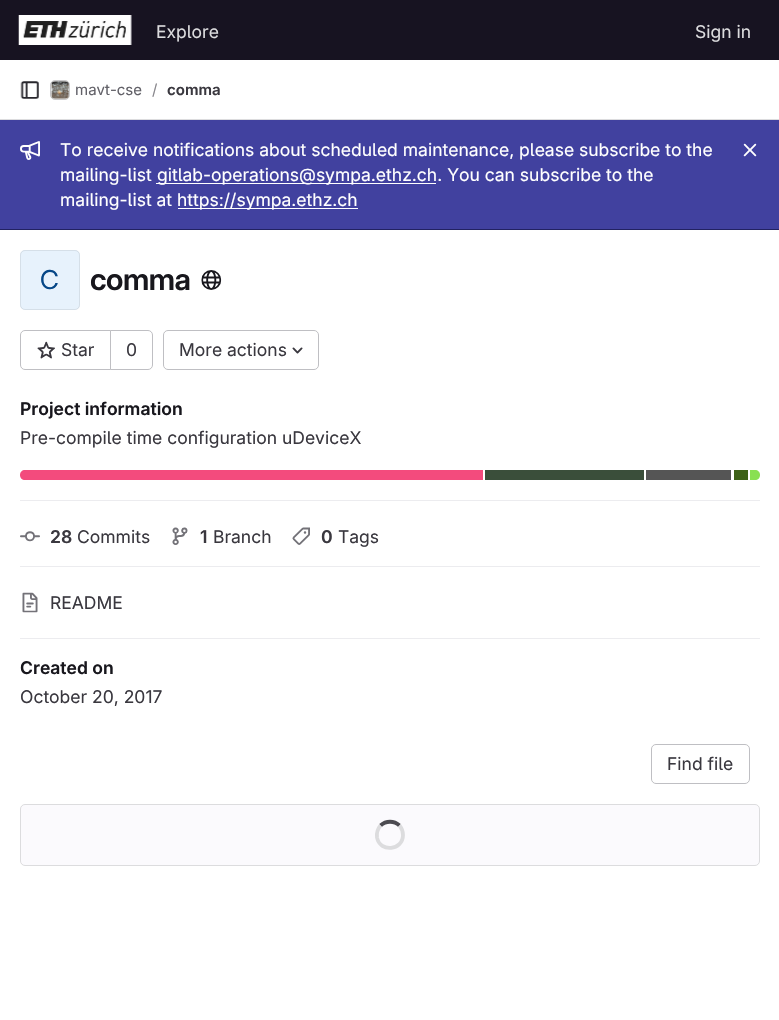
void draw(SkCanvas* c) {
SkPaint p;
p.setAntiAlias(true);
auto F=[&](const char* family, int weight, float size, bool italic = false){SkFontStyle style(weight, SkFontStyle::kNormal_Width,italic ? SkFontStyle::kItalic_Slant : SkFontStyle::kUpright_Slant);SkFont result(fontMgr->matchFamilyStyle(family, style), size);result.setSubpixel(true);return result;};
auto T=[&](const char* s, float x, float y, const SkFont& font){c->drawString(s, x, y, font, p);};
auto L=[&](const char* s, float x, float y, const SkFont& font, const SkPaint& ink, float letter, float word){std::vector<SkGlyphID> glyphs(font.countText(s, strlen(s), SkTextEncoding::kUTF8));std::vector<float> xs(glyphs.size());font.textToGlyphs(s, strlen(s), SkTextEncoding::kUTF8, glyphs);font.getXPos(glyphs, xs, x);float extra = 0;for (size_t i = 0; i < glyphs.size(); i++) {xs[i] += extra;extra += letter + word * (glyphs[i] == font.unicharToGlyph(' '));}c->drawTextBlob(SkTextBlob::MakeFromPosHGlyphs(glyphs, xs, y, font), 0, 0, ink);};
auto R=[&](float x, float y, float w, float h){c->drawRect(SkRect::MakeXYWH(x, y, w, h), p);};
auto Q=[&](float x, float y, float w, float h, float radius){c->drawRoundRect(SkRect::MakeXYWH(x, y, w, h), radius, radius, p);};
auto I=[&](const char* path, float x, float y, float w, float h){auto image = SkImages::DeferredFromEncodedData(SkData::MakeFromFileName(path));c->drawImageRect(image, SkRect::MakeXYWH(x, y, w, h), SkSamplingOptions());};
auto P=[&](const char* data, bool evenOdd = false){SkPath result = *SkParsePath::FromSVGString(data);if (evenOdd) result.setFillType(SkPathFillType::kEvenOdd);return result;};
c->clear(0xffffffff);
p.setColor(0xff171321);
R(0,0,779,60);
I("1.png",18,15,114,30);
auto f1 = F("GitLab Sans",400,17.5);
p.setColor(0xffdcdcde);
T("Explore",156,38,f1);
T("Sign in",695,38,f1);
R(0,119,779,1);
I("2.png",20,81,19,18);
p.setStroke(true);
p.setStrokeWidth(1);
c->drawRoundRect(SkRect::MakeXYWH(50.5,80.5,19,19),4.5,4.5,p);
I("3.png",50,81,19,18);
p.setColor(0x14050506);
c->drawRoundRect(SkRect::MakeXYWH(50.5,80.5,19,19),4.5,4.5,p);
auto f2 = F("GitLab Sans",400,15);
p.setStroke(false);
p.setColor(0xff626168);
T("mavt-cse",75,95,f2);
p.setColor(0xff89888d);
T("/",152,95,f2);
auto f3 = F("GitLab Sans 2",600,15);
p.setColor(0xff3a383f);
T("comma",167,95,f3);
p.setColor(0xff41419f);
R(0,120,779,109);
p.setColor(0xff222261);
R(0,229,779,1);
I("4.png",20,141,20,19);
p.setColor(0xffffffff);
T("To receive notifications about scheduled maintenance, please subscribe to the",60,156,f1);
T("mailing-list",60,181,f1);
R(156,183,280,1);
T("gitlab-operations@sympa.ethz.ch. You can subscribe to the",157,181,f1);
T("mailing-list at",60,206,f1);
R(178,208,180,1);
T("https://sympa.ethz.ch",177,206,f1);
I("5.png",743,143,14,14);
p.setColor(0xffe7f2fc);
Q(20,250,60,60,5);
p.setStroke(true);
p.setColor(0x14050506);
c->drawRoundRect(SkRect::MakeXYWH(20.5,250.5,59,59),4.5,4.5,p);
auto f4 = F("GitLab Sans 2",400,26);
p.setStroke(false);
p.setColor(0xff064787);
T("C",40,289,f4);
auto f5 = F("GitLab Sans",600,30);
p.setColor(0xff18171d);
L("comma",90,290,f5,p,-.5,0);
I("6.png",201,270,21,20);
p.setStroke(true);
p.setColor(0xffbfbfc3);
c->drawPath(P("M25 330.5h85.5v39h-85.5c-2.5 0-4.5-2-4.5-4.5v-30c0-2.5 2-4.5 4.5-4.5z"),p);
I("7.png",37,341,18,18);
p.setStroke(false);
p.setColor(0xff3a383f);
T("Star",61,356,f1);
p.setColor(0xffffffff);
c->drawPath(P("M110.5 330.5h37.5c2.5 0 4.5 2 4.5 4.5v30c0 2.5-2 4.5-4.5 4.5h-37.5z"),p);
p.setStroke(true);
p.setColor(0xffbfbfc3);
c->drawPath(P("M110.5 330.5h37.5c2.5 0 4.5 2 4.5 4.5v30c0 2.5-2 4.5-4.5 4.5h-37.5z"),p);
p.setStroke(false);
p.setColor(0xff3a383f);
T("0",126,356,f1);
p.setStroke(true);
p.setColor(0xffbfbfc3);
c->drawRoundRect(SkRect::MakeXYWH(163.5,330.5,155,39),4.5,4.5,p);
p.setStroke(false);
p.setColor(0xff3a383f);
T("More actions",179,356,f1);
I("8.png",292,347,11,7);
p.setColor(0xffececef);
R(20,500,740,1);
auto f6 = F("GitLab Sans 2",600,17.5);
p.setColor(0xff18171d);
T("Project information",20,415,f6);
p.setColor(0xff3a383f);
T("Pre-compile time configuration uDeviceX",20,444,f1);
p.setColor(0xfff34b7d);
c->drawPath(P("M25 470h458v10h-458c-3 0-5-2-5-5c0-3 2-5 5-5z"),p);
p.setColor(0xff3a4e3a);
R(485,470,159,10);
p.setColor(0xff555555);
R(646,470,85,10);
p.setColor(0xff3d6117);
R(734,470,14,10);
p.setColor(0xff89e051);
c->drawPath(P("M750 470h5c3 0 5 2 5 5c0 3-2 5-5 5h-5z"),p);
p.setColor(0xffececef);
R(20,566,740,1);
I("9.png",20,531,20,11);
p.setColor(0xff3a383f);
T("28",50,543,f6);
T("Commits",77,543,f1);
I("10.png",172,527,16,18);
T("1",200,543,f6);
T("Branch",213,543,f1);
I("11.png",292,527,18,18);
T("0",321,543,f6);
T("Tags",338,543,f1);
p.setColor(0xffececef);
R(20,638,740,1);
I("12.png",22,592,16,21);
p.setColor(0xff3a383f);
T("README",50,609,f1);
p.setColor(0xff18171d);
T("Created on",20,674,f6);
p.setColor(0xff3a383f);
T("October 20, 2017",20,703,f1);
p.setStroke(true);
p.setColor(0xffbfbfc3);
c->drawRoundRect(SkRect::MakeXYWH(651.5,744.5,98,39),4.5,4.5,p);
p.setStroke(false);
p.setColor(0xff3a383f);
T("Find file",667,770,f1);
p.setColor(0xfffbfafd);
c->drawRoundRect(SkRect::MakeXYWH(20.5,804.5,739,61),4.5,4.5,p);
p.setStroke(true);
p.setColor(0xffdcdcde);
c->drawRoundRect(SkRect::MakeXYWH(20.5,804.5,739,61),4.5,4.5,p);
p.setStrokeWidth(3.8);
p.setColor(0xff4c4b51);
c->drawPath(P("M380.5 825.5c5.5-5 13.5-5 19 0"),p);
p.setColor(0xffdcdcde);
c->drawPath(P("M399.5 825.5c2 2.5 3.5 6 3.5 9.5c0 15.5-23 18-26 2.5c-.5-4 .5-8.5 3.5-12"),p);
}
